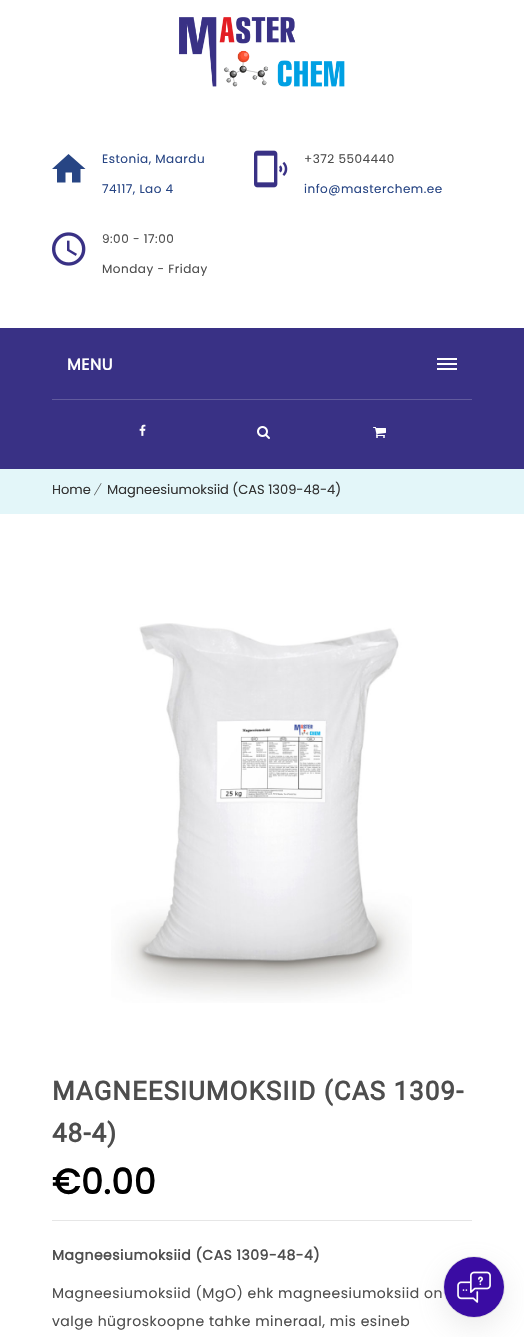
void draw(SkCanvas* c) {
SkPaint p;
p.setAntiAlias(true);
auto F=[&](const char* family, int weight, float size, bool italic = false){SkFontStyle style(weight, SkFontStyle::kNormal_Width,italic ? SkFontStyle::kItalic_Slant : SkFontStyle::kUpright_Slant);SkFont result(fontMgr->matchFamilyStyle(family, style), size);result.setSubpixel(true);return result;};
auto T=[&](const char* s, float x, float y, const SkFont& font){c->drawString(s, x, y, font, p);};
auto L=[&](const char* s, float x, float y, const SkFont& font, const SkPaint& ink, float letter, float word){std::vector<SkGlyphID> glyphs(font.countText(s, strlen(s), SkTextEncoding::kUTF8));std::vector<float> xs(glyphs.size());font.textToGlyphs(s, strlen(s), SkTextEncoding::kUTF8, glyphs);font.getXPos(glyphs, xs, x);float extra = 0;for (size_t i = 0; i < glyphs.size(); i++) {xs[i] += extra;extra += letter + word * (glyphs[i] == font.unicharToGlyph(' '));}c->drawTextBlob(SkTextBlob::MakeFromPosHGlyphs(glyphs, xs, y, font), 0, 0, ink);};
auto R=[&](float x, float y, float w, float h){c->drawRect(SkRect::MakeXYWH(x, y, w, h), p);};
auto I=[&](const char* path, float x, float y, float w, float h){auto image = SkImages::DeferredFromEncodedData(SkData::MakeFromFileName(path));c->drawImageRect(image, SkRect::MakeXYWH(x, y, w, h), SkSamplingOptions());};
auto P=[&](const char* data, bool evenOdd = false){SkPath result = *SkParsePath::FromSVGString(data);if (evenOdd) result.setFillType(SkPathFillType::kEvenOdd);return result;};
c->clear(0xffffffff);
I("1.png",179,17,166,70);
p.setColor(0xff274584);
c->drawPath(P("M65.5 182.5h-8.5v-13.5h-5l16.5-15l17 15h-5v13.5h-8.5v-10h-6.5z"),p);
auto f1 = F("Poppins",400,12);
L("Estonia, Maardu",102,163,f1,p,.5,0);
L("74117, Lao 4",102,193,f1,p,.5,0);
I("2.png",254,150,34,38);
p.setColor(0xff4d4d4d);
L("+372 5504440",304,163,f1,p,.5,0);
p.setColor(0xff274584);
L("info@masterchem.ee",304,193,f1,p,.5,0);
I("3.png",52,232,34,34);
p.setColor(0xff4d4d4d);
L("9:00 - 17:00",102,243,f1,p,.5,0);
L("Monday - Friday",102,273,f1,p,.5,0);
p.setColor(0xff393185);
R(0,328,524,141);
auto f2 = F("Poppins",700,16);
p.setColor(0xffffffff);
L("MENU",67,370,f2,p,.5,0);
R(437,363,20,2);
R(437,358,20,2);
R(437,368,20,2);
p.setColor(0xff615a9d);
R(52,399,420,1);
I("4.png",139,424,7,12);
I("5.png",257,426,13,13);
I("6.png",373,427,13,11);
p.setColor(0xffe3f6f9);
R(0,469,524,45);
auto f3 = F("Poppins",400,13);
p.setColor(0xff333333);
T("Home",52,494,f3);
p.setColor(0xff4d4d4d);
c->drawPath(P("M101 483l.5 .5l-7 12l-.5-.5z"),p);
p.setColor(0xff333333);
T("Magneesiumoksiid (CAS 1309-48-4)",107,494,f3);
I("7.png",111,623,301,380);
auto f4 = F("Roboto",700,26);
p.setColor(0xff4d4d4d);
L("MAGNEESIUMOKSIID (CAS 1309-",52,1100,f4,p,1,0);
L("48-4)",52,1142,f4,p,1,0);
p.setColor(0xffe6e6e6);
R(52,1220,420,1);
auto f5 = F("Poppins",700,35);
p.setColor(0xff000000);
L("€0.00",52,1194,f5,p,.5,0);
auto f6 = F("Poppins",700,14);
p.setColor(0xff4d4d4d);
L("Magneesiumoksiid (CAS 1309-48-4)",52,1260,f6,p,.5,0);
auto f7 = F("Poppins",400,14);
L("Magneesiumoksiid (MgO) ehk magneesiumoksiid on",52,1298,f7,p,.5,0);
L("valge hügroskoopne tahke mineraal, mis esineb",52,1326,f7,p,.5,0);
p.setStroke(true);
p.setStrokeWidth(1);
p.setColor(0xffeaeaea);
c->drawCircle(474,1287,30.5,p);
p.setStroke(false);
p.setColor(0x33969696);
p.setMaskFilter(SkMaskFilter::MakeBlur(kNormal_SkBlurStyle, 15));
c->drawRoundRect(SkRect::MakeXYWH(444,1267,60,60),30,30,p);
p.setMaskFilter(nullptr);
p.setColor(0xff3a0ca3);
c->drawCircle(474,1287,30,p);
I("8.png",457,1271,34,32);
}
